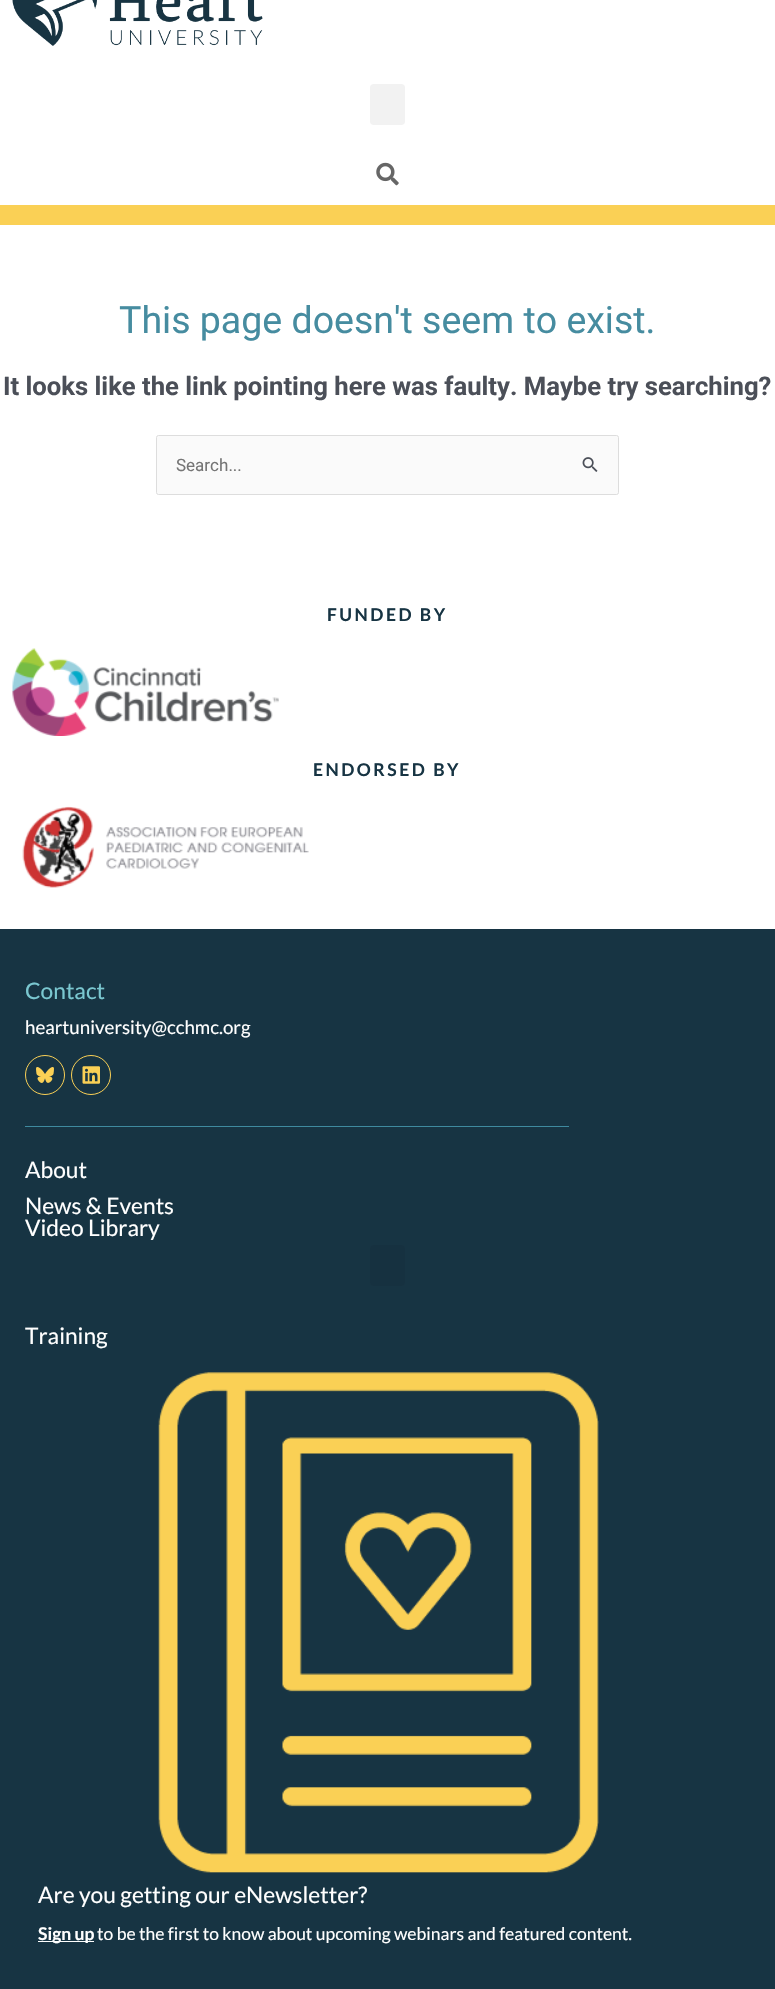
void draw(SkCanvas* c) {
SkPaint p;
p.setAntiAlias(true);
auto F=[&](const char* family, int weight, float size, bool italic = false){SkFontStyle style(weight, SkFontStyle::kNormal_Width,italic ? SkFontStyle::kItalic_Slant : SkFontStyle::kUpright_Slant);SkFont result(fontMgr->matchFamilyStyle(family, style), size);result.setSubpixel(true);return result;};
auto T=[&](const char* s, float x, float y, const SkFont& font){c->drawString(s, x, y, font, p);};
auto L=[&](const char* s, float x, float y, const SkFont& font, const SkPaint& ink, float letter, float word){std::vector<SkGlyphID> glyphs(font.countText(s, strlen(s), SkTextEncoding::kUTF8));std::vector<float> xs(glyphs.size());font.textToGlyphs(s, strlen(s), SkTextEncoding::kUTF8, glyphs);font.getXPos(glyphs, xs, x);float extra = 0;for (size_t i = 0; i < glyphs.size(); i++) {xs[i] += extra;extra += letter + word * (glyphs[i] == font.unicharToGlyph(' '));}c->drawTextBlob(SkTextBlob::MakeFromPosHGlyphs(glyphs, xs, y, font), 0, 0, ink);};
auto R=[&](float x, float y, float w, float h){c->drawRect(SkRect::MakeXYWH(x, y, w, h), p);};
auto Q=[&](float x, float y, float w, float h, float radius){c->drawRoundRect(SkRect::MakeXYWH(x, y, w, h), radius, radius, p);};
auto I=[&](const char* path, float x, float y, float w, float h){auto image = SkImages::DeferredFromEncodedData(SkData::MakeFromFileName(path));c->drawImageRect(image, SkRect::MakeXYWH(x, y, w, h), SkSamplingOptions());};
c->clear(0xffffffff);
p.setColor(0xfffad055);
R(0,205,775,20);
I("1.png",12,0,251,46);
p.setColor(0xfff2f2f2);
Q(370,84,35,41,4);
I("2.png",376,162,23,24);
auto f1 = F("Roboto",400,37.5);
p.setColor(0xff468ca0);
T("This page doesn't seem to exist.",119,333,f1);
auto f2 = F("Roboto",700,25.65);
p.setColor(0xff4b4f58);
T("It looks like the link pointing here was faulty. Maybe try searching?",3,395,f2);
p.setColor(0xfffafafa);
c->drawRoundRect(SkRect::MakeXYWH(156.5,435.5,462,59),2,2,p);
p.setStroke(true);
p.setStrokeWidth(1);
p.setColor(0xffdddddd);
c->drawRoundRect(SkRect::MakeXYWH(156.5,435.5,462,59),2,2,p);
auto f3 = F("Roboto",400,17);
p.setStroke(false);
p.setColor(0xff757575);
T("Search...",176,471,f3);
I("3.png",582,457,16,15);
auto f4 = F("Lato",700,17.5);
p.setColor(0xff173443);
L("FUNDED BY",327,621,f4,p,2.5,0);
I("4.png",12,648,267,88);
L("ENDORSED BY",313,776,f4,p,2.5,0);
I("5.png",22,806,287,82);
R(0,929,775,1060);
auto f5 = F("Lato",400,22.75);
p.setColor(0xff7ac7d0);
T("Contact",25,999,f5);
auto f6 = F("Lato",400,18.75);
p.setColor(0xffffffff);
T("heartuniversity@cchmc.org",25,1034,f6);
p.setStroke(true);
p.setColor(0xfffad055);
c->drawCircle(45,1075,19.5,p);
I("6.png",36,1067,18,16);
c->drawCircle(91,1075,19.5,p);
I("7.png",82,1066,18,18);
p.setStroke(false);
p.setColor(0xff3f8a9f);
R(25,1126,544,1);
p.setColor(0xffffffff);
T("About",25,1178,f5);
T("News & Events",25,1214,f5);
T("Video Library",25,1236,f5);
p.setColor(0xff163140);
Q(370,1245,35,41,4);
p.setColor(0xffffffff);
T("Training",25,1344,f5);
I("8.png",158,1372,441,501);
T("Are you getting our eNewsletter?",38,1903,f5);
R(38,1941,56,1);
T("Sign up",38,1940,f4);
auto f7 = F("Lato",400,17.5);
T("to be the first to know about upcoming webinars and featured content.",97,1940,f7);
}
